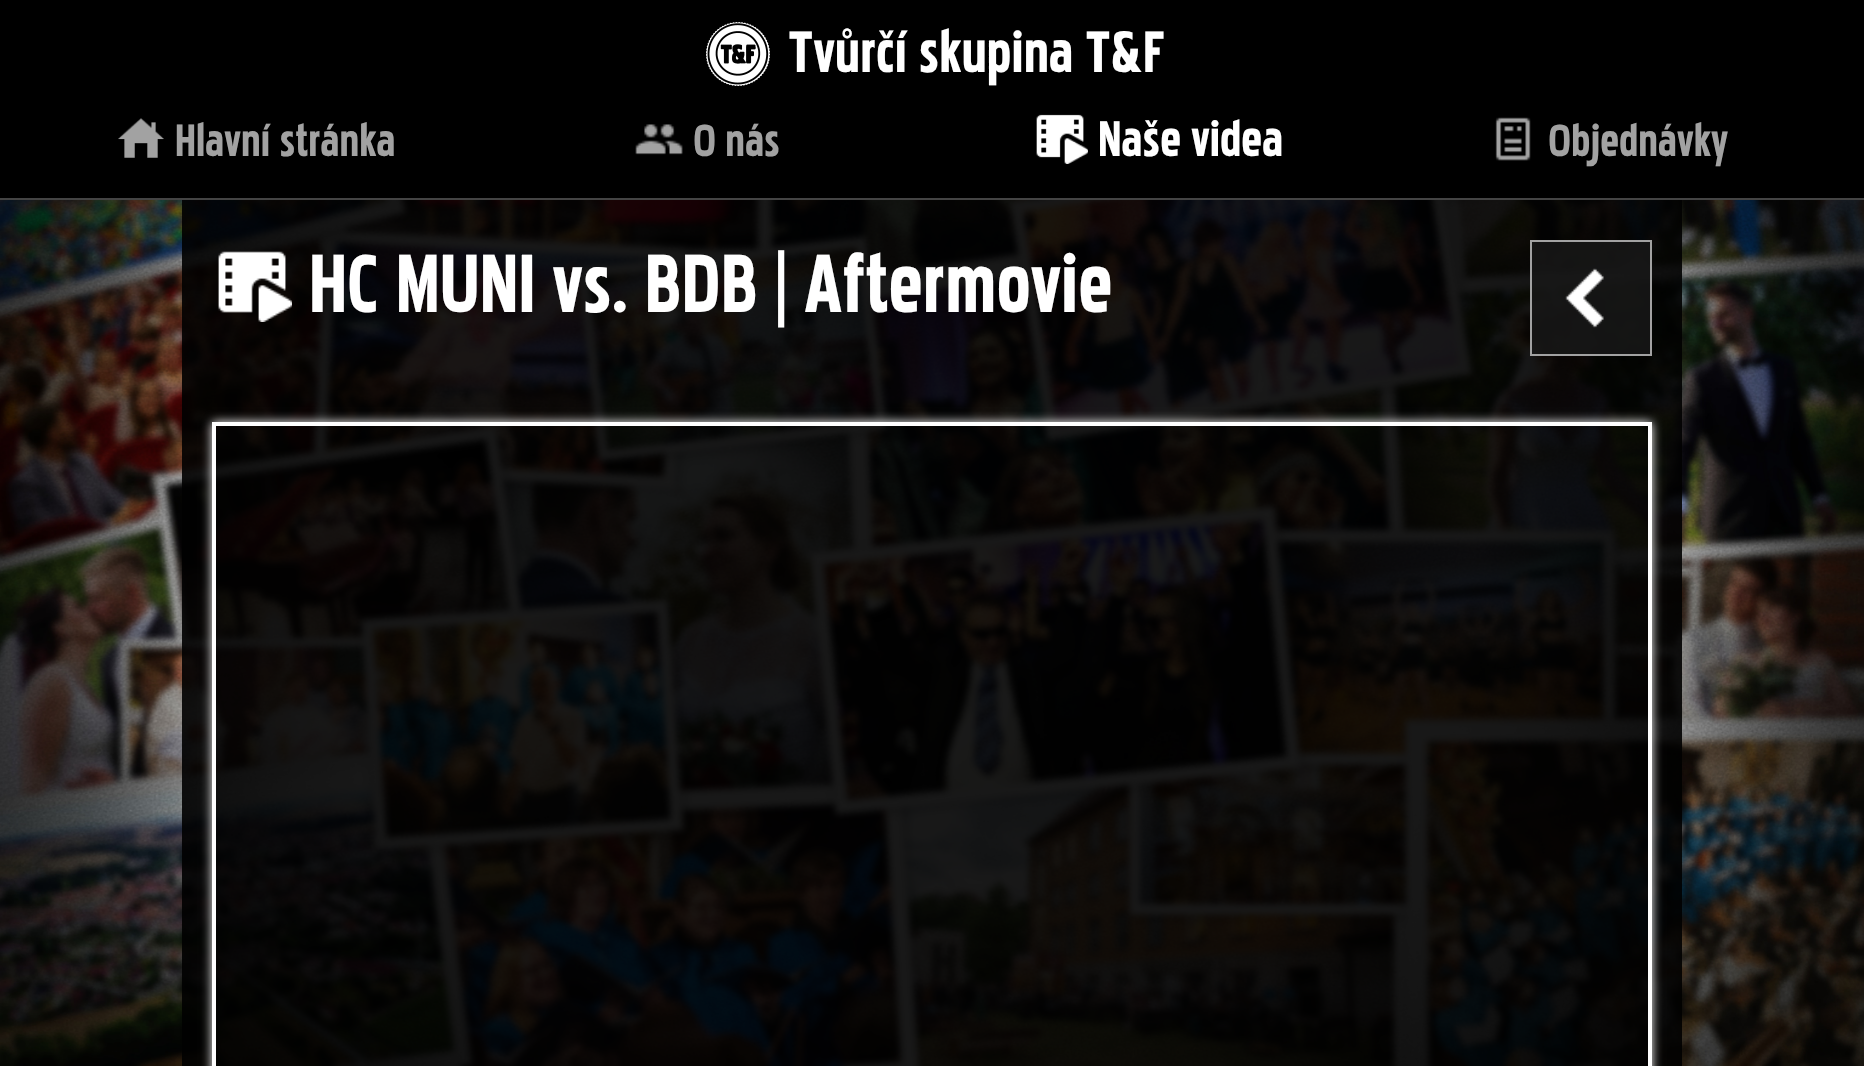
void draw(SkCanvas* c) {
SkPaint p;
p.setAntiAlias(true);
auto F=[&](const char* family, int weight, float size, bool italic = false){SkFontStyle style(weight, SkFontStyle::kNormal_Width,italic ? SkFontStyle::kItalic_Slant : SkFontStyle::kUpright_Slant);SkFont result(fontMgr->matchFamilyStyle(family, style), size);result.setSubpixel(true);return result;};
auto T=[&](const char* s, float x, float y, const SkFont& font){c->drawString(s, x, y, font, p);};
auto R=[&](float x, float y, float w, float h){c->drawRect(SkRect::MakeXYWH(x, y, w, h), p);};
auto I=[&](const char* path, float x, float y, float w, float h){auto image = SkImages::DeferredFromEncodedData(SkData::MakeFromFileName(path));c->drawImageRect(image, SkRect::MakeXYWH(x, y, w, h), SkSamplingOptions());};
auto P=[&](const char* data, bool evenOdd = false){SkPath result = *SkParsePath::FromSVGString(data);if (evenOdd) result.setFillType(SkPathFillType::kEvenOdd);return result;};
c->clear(0xffffffff);
I("1.png",0,200,1864,866);
p.setColor(0xff000000);
R(0,0,1864,198);
I("2.png",706,22,64,64);
auto f1 = F("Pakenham",400,72);
p.setColor(0xffffffff);
T("Tvůrčí skupina T&F",788,72,f1);
p.setColor(0xff444444);
R(0,198,1864,2);
I("3.png",118,118,46,40);
auto f2 = F("Pakenham",400,56);
p.setColor(0xffa2a2a2);
T("Hlavní stránka",175,156,f2);
I("4.png",635,124,48,31);
T("O nás",693,156,f2);
I("5.png",1036,114,52,50);
auto f3 = F("Pakenham",400,62);
p.setColor(0xffffffff);
T("Naše videa",1098,156,f3);
I("6.png",1495,117,36,44);
p.setColor(0xffa2a2a2);
T("Objednávky",1548,156,f2);
p.setColor(0xe6000000);
R(182,200,1500,866);
I("7.png",218,251,74,71);
auto f4 = F("Pakenham",400,102);
p.setColor(0xffffffff);
T("HC MUNI vs. BDB | Aftermovie",309,312,f4);
p.setColor(0xd1171717);
c->drawRect(SkRect::MakeXYWH(1531,241,120,114),p);
p.setStroke(true);
p.setStrokeWidth(2);
p.setColor(0xffa2a2a2);
c->drawRect(SkRect::MakeXYWH(1531,241,120,114),p);
I("8.png",1565,268,39,60);
c->save();
c->clipPath(P("M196 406h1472v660h-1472zm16 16h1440v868h-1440z",true),true);
p.setStroke(false);
p.setColor(0xffffffff);
p.setMaskFilter(SkMaskFilter::MakeBlur(kNormal_SkBlurStyle, 5));
c->drawRect(SkRect::MakeXYWH(212,422,1440,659),p);
p.setMaskFilter(nullptr);
c->restore();
p.setStroke(true);
p.setStrokeWidth(4);
c->drawRect(SkRect::MakeXYWH(214,424,1436,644),p);
}
